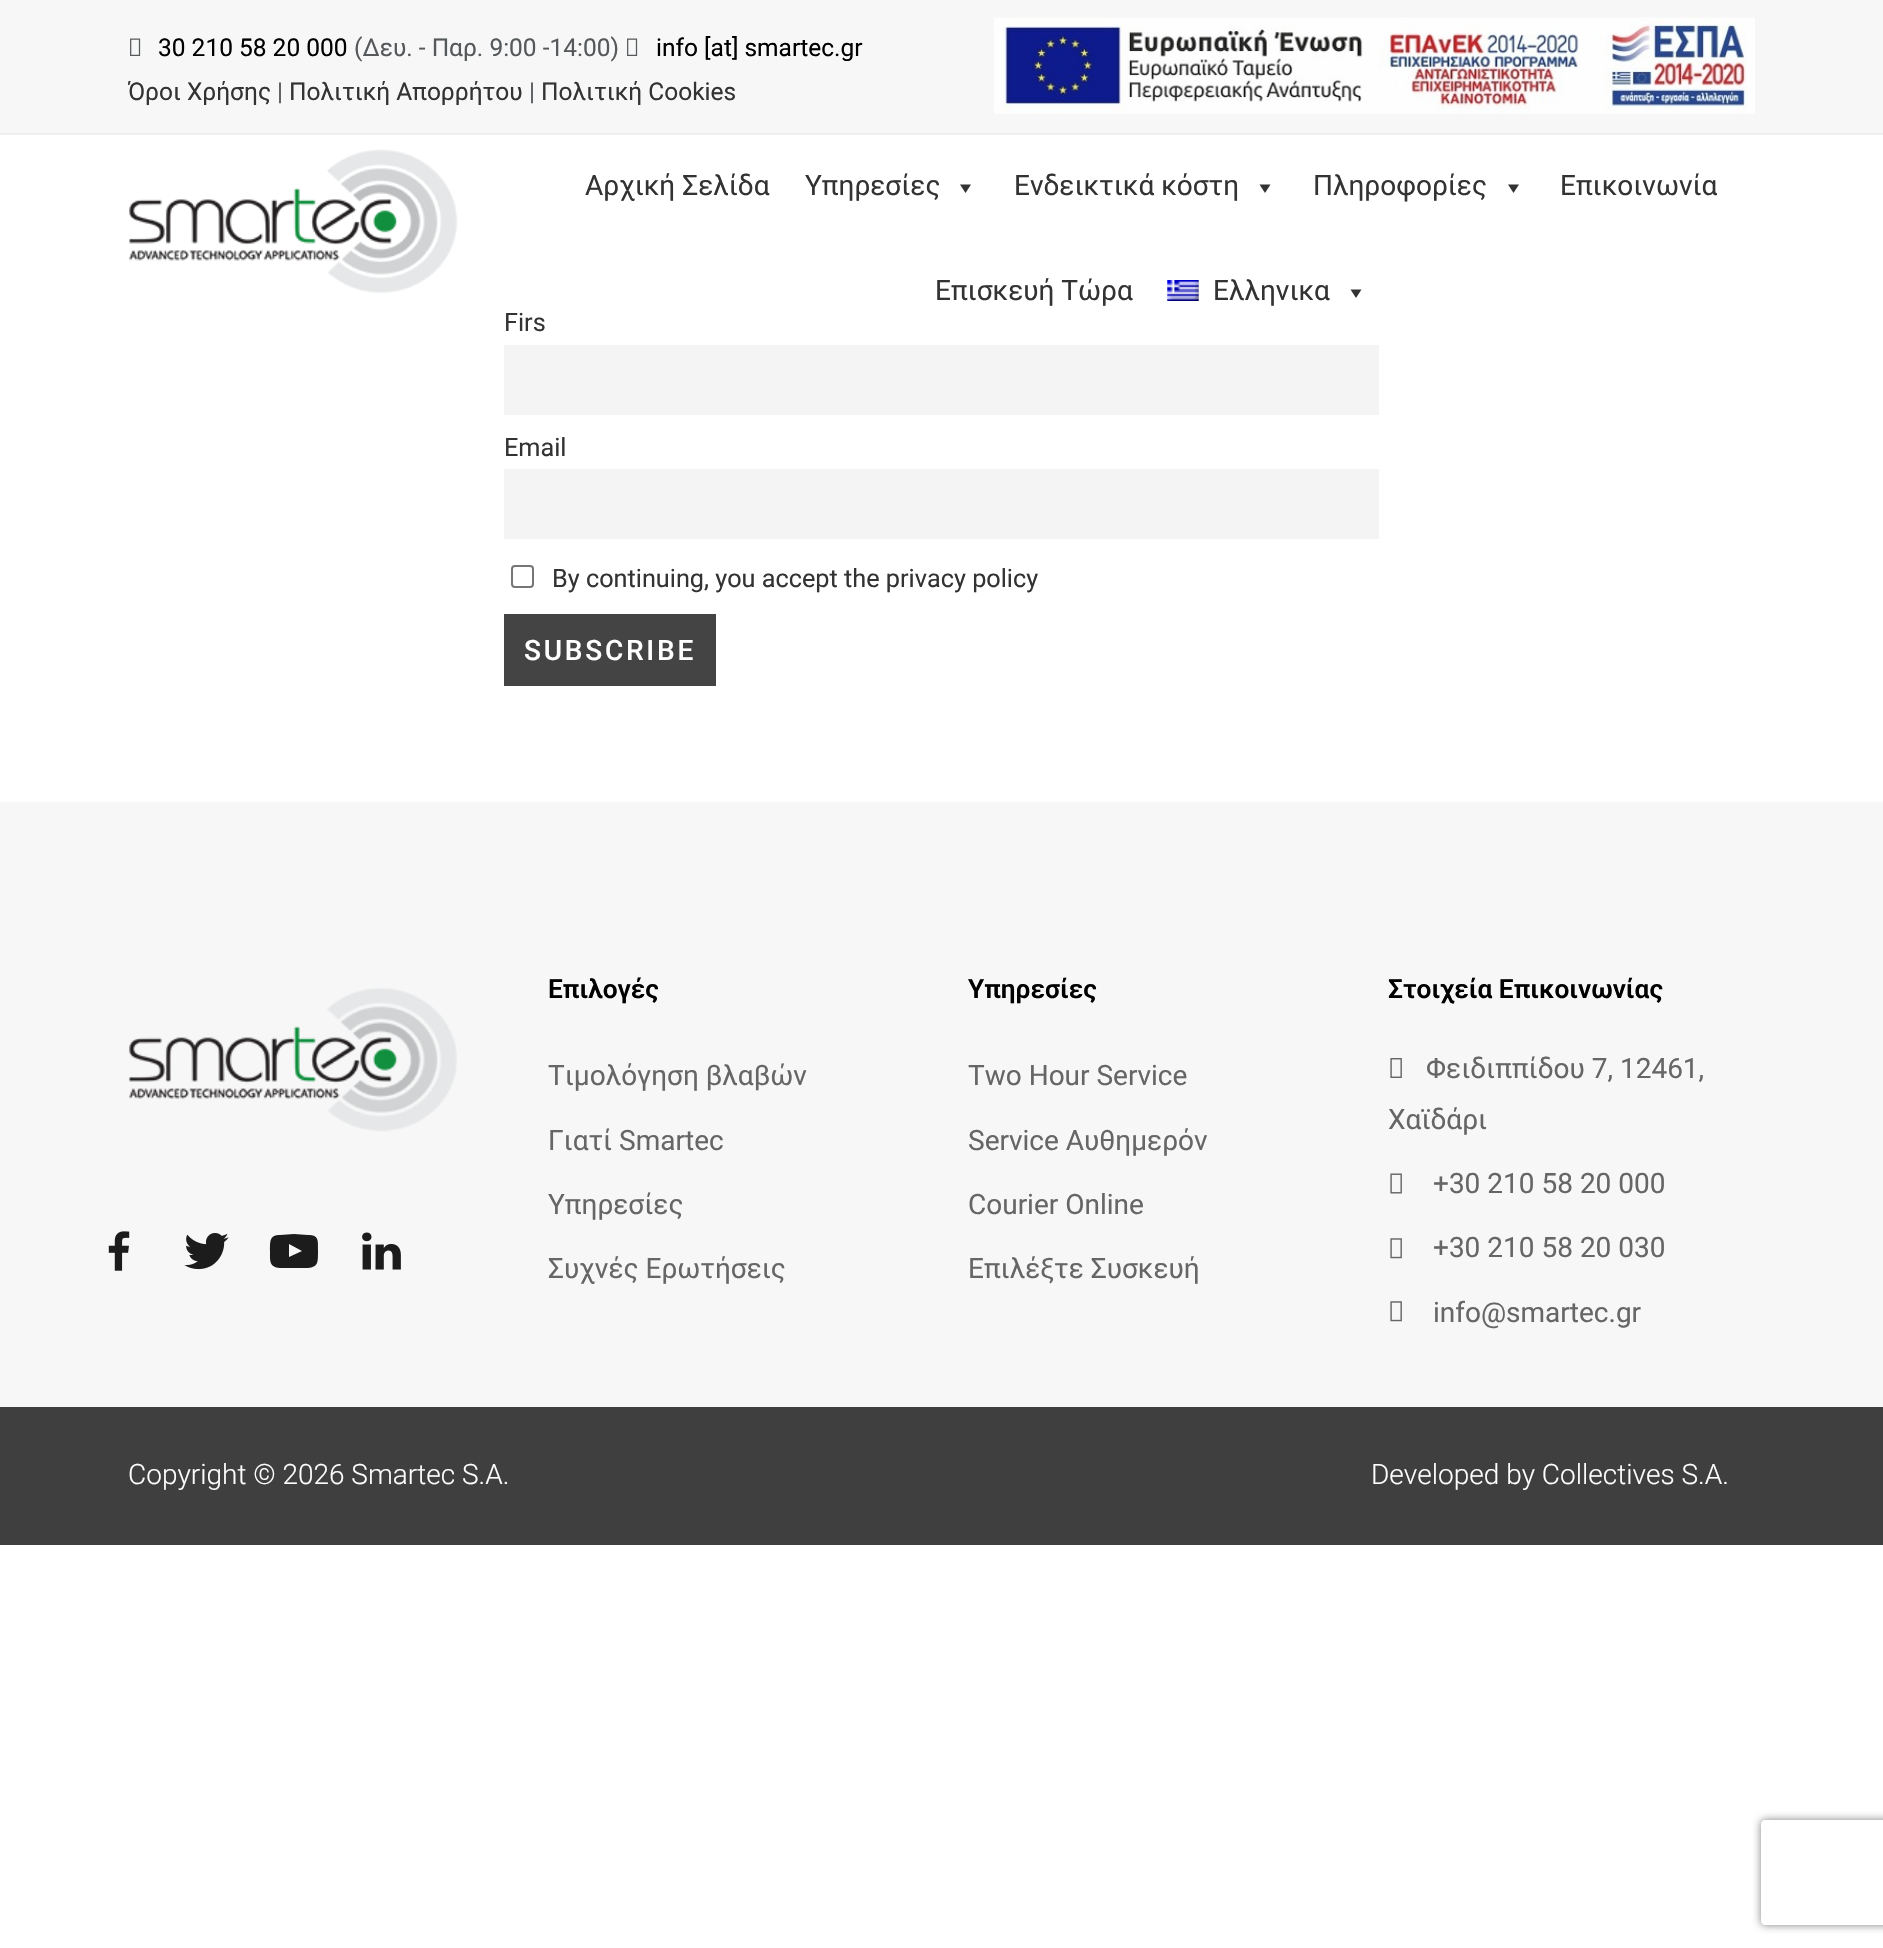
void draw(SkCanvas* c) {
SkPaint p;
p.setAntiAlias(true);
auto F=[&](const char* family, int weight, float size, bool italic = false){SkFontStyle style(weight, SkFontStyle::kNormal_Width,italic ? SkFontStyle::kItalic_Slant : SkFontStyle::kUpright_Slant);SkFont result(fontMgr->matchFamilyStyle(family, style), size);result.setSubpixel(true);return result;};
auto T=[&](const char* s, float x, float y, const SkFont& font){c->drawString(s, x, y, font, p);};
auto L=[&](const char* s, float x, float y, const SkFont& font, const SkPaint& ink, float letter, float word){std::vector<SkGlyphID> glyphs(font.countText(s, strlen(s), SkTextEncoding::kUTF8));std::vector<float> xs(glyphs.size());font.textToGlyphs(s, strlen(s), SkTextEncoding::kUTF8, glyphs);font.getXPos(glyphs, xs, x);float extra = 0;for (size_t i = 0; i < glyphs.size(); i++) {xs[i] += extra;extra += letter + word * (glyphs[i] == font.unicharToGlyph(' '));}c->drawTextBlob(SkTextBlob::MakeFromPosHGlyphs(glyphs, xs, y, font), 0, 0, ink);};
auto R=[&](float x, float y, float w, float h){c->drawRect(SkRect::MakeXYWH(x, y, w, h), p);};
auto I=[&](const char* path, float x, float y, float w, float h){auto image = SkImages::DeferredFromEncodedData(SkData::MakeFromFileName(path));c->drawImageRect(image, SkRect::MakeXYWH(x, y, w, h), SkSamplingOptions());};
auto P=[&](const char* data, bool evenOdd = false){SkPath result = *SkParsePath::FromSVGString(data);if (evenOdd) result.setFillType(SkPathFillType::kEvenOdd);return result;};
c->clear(0xffffffff);
p.setColor(0xfff7f7f7);
R(0,0,1883,133);
p.setColor(0xffeeeeee);
R(0,133,1883,2);
I("1.png",130,38,11,18);
auto f1 = F("Roboto",400,24.5);
p.setColor(0xff000000);
T("30 210 58 20 000",158,56,f1);
p.setColor(0xff55595c);
T("(Δευ. - Παρ. 9:00 -14:00)",354,56,f1);
I("1.png",627,38,11,18);
p.setColor(0xff000000);
T("info [at] smartec.gr",656,56,f1);
p.setColor(0xff333333);
T("Όροι Χρήσης",128,100,f1);
p.setColor(0xff55595c);
T("|",277,100,f1);
p.setColor(0xff333333);
T("Πολιτική Απορρήτου",289,100,f1);
p.setColor(0xff55595c);
T("|",529,100,f1);
p.setColor(0xff333333);
T("Πολιτική Cookies",541,100,f1);
I("2.png",994,17,761,97);
I("3.png",129,149,329,144);
auto f2 = F("Roboto",400,28);
T("Αρχική Σελίδα",585,195,f2);
T("Υπηρεσίες",805,195,f2);
c->drawPath(P("M971 184.5l-5.5 8.5l-5.5-8.5z"),p);
T("Ενδεικτικά κόστη",1014,195,f2);
c->drawPath(P("M1270.5 184.5l-5.5 8.5l-5.5-8.5z"),p);
T("Πληροφορίες",1313,195,f2);
c->drawPath(P("M1519 184.5l-5.5 8.5l-5.5-8.5z"),p);
T("Επικοινωνία",1560,195,f2);
T("Επισκευή Τώρα",935,300,f2);
I("4.png",1167,280,32,21);
T("Ελληνικα",1213,300,f2);
c->drawPath(P("M1361.5 289.5l-5.5 8.5l-5.5-8.5z"),p);
auto f3 = F("Roboto",400,25.25);
T("Firs",504,331,f3);
p.setColor(0xfff4f4f4);
R(504,345,875,70);
p.setColor(0xff333333);
T("Email",504,456,f3);
p.setColor(0xfff4f4f4);
R(504,469,875,70);
p.setStroke(true);
p.setStrokeWidth(2);
p.setColor(0xff767676);
c->drawRoundRect(SkRect::MakeXYWH(512,566,21,21),3,3,p);
p.setStroke(false);
p.setColor(0xff333333);
T("By continuing, you accept the privacy policy",552,587,f3);
p.setColor(0xff444444);
R(504,614,212,72);
auto f4 = F("Roboto",500,28);
p.setColor(0xffffffff);
L("SUBSCRIBE",524,660,f4,p,2.75,0);
p.setColor(0xfff7f7f7);
R(0,802,1883,605);
I("5.png",129,988,328,144);
I("6.png",108,1231,22,40);
I("7.png",184,1233,45,37);
p.setColor(0xff1c1c1c);
c->drawPath(P("M294 1234l14 1c11 0 10 5 10 16c0 12 0 16-10 17h-28c-11-1-10-7-10-17c0-11 0-16 10-16zm-5 23l13-6l-13-7z"),p);
I("8.png",362,1232,39,38);
auto f5 = F("Roboto",600,26.25);
p.setColor(0xff000000);
T("Επιλογές",548,998,f5);
p.setColor(0xff666666);
T("Τιμολόγηση βλαβών",548,1085,f2);
T("Γιατί Smartec",548,1150,f2);
T("Υπηρεσίες",548,1214,f2);
T("Συχνές Ερωτήσεις",548,1278,f2);
p.setColor(0xff000000);
T("Υπηρεσίες",968,998,f5);
p.setColor(0xff666666);
T("Two Hour Service",968,1085,f2);
T("Service Αυθημερόν",968,1150,f2);
T("Courier Online",968,1214,f2);
T("Επιλέξτε Συσκευή",968,1278,f2);
p.setColor(0xff000000);
T("Στοιχεία Επικοινωνίας",1388,998,f5);
I("9.png",1390,1058,12,20);
p.setColor(0xff666666);
T("Φειδιππίδου 7, 12461,",1426,1078,f2);
T("Χαϊδάρι",1388,1129,f2);
I("10.png",1390,1173,12,21);
T("+30 210 58 20 000",1433,1193,f2);
I("11.png",1390,1238,12,21);
T("+30 210 58 20 030",1433,1257,f2);
I("11.png",1390,1301,12,21);
T("info@smartec.gr",1433,1322,f2);
p.setColor(0xff3f3f3f);
R(0,1407,1883,138);
auto f6 = F("Roboto",300,28);
p.setColor(0xffffffff);
T("Copyright © 2026 Smartec S.A.",128,1484,f6);
T("Developed by Collectives S.A.",1371,1484,f6);
c->save();
c->clipPath(P("M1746 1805h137v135h-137zm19 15h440c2 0 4 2 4 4v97c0 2-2 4-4 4h-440c-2 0-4-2-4-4v-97c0-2 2-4 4-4z",true),true);
p.setColor(0xff808080);
p.setMaskFilter(SkMaskFilter::MakeBlur(kNormal_SkBlurStyle, 4.5));
c->drawRoundRect(SkRect::MakeXYWH(1761,1820,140,105),4,4,p);
p.setMaskFilter(nullptr);
c->restore();
}
